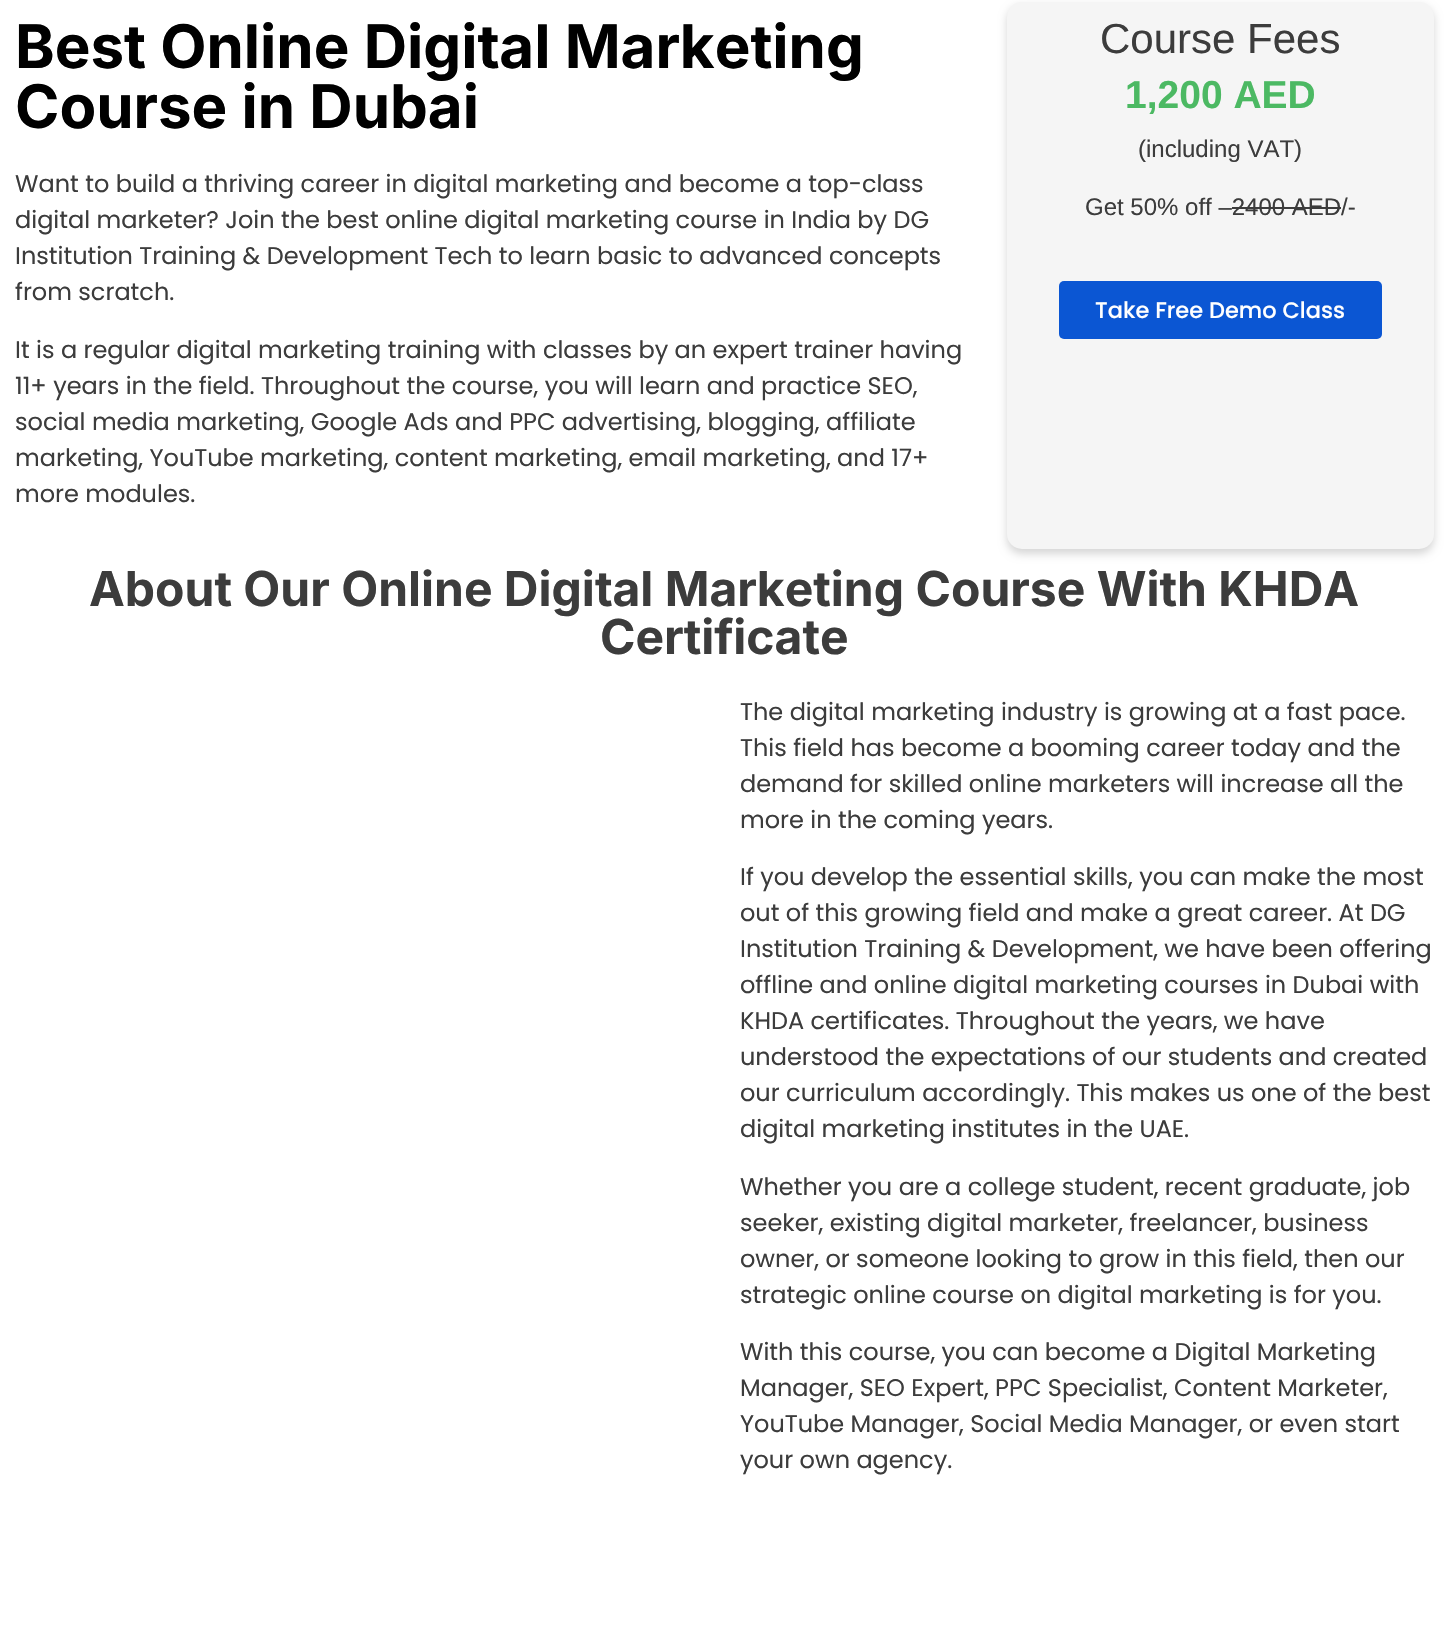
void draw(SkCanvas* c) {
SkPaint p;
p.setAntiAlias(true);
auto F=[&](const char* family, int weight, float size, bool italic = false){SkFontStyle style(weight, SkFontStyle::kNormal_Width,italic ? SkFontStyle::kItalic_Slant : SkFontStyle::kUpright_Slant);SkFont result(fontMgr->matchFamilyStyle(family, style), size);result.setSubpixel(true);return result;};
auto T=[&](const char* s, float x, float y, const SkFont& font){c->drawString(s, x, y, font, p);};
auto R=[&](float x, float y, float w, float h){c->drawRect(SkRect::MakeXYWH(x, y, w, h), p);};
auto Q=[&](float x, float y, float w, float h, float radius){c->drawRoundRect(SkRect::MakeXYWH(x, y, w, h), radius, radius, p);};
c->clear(0xffffffff);
auto f1 = F("Inter",700,60);
p.setColor(0xff000000);
T("Best Online Digital Marketing",15,68,f1);
T("Course in Dubai",15,128,f1);
auto f2 = F("Poppins",400,24);
p.setColor(0xff3c3c3c);
T("Want to build a thriving career in digital marketing and become a top-class",15,192,f2);
T("digital marketer? Join the best online digital marketing course in India by DG",15,228,f2);
T("Institution Training & Development Tech to learn basic to advanced concepts",15,264,f2);
T("from scratch.",15,300,f2);
T("It is a regular digital marketing training with classes by an expert trainer having",15,358,f2);
T("11+ years in the field. Throughout the course, you will learn and practice SEO,",15,394,f2);
T("social media marketing, Google Ads and PPC advertising, blogging, affiliate",15,430,f2);
T("marketing, YouTube marketing, content marketing, email marketing, and 17+",15,466,f2);
T("more modules.",15,502,f2);
p.setColor(0x29000000);
p.setMaskFilter(SkMaskFilter::MakeBlur(kNormal_SkBlurStyle, 4.5));
c->drawRoundRect(SkRect::MakeXYWH(1007,6,427,548),15,15,p);
p.setMaskFilter(nullptr);
p.setColor(0xfff5f5f5);
Q(1007,2,427,547,15);
auto f3 = F("Liberation Sans",400,42);
p.setColor(0xff3c3c3c);
T("Course Fees",1100,53,f3);
auto f4 = F("Liberation Sans",700,39);
p.setColor(0xff4cb963);
T("1,200 AED",1125,108,f4);
auto f5 = F("Liberation Sans",400,24);
p.setColor(0xff3c3c3c);
T("(including VAT)",1138,157,f5);
T("Get 50% off –2400 AED",1085,215,f5);
R(1232,207,109,2);
T("/-",1341,215,f5);
p.setColor(0xff0b56d3);
Q(1059,281,323,58,5);
auto f6 = F("Poppins",500,22.5);
p.setColor(0xffffffff);
T("Take Free Demo Class",1095,318,f6);
auto f7 = F("Inter",700,48);
p.setColor(0xff3c3c3c);
T("About Our Online Digital Marketing Course With KHDA",89,606,f7);
T("Certificate",600,654,f7);
T("The digital marketing industry is growing at a fast pace.",740,720,f2);
T("This field has become a booming career today and the",740,756,f2);
T("demand for skilled online marketers will increase all the",740,792,f2);
T("more in the coming years.",740,828,f2);
T("If you develop the essential skills, you can make the most",740,885,f2);
T("out of this growing field and make a great career. At DG",740,921,f2);
T("Institution Training & Development, we have been offering",740,957,f2);
T("offline and online digital marketing courses in Dubai with",740,993,f2);
T("KHDA certificates. Throughout the years, we have",740,1029,f2);
T("understood the expectations of our students and created",740,1065,f2);
T("our curriculum accordingly. This makes us one of the best",740,1101,f2);
T("digital marketing institutes in the UAE.",740,1137,f2);
T("Whether you are a college student, recent graduate, job",740,1195,f2);
T("seeker, existing digital marketer, freelancer, business",740,1231,f2);
T("owner, or someone looking to grow in this field, then our",740,1267,f2);
T("strategic online course on digital marketing is for you.",740,1303,f2);
T("With this course, you can become a Digital Marketing",740,1360,f2);
T("Manager, SEO Expert, PPC Specialist, Content Marketer,",740,1396,f2);
T("YouTube Manager, Social Media Manager, or even start",740,1432,f2);
T("your own agency.",740,1468,f2);
}
